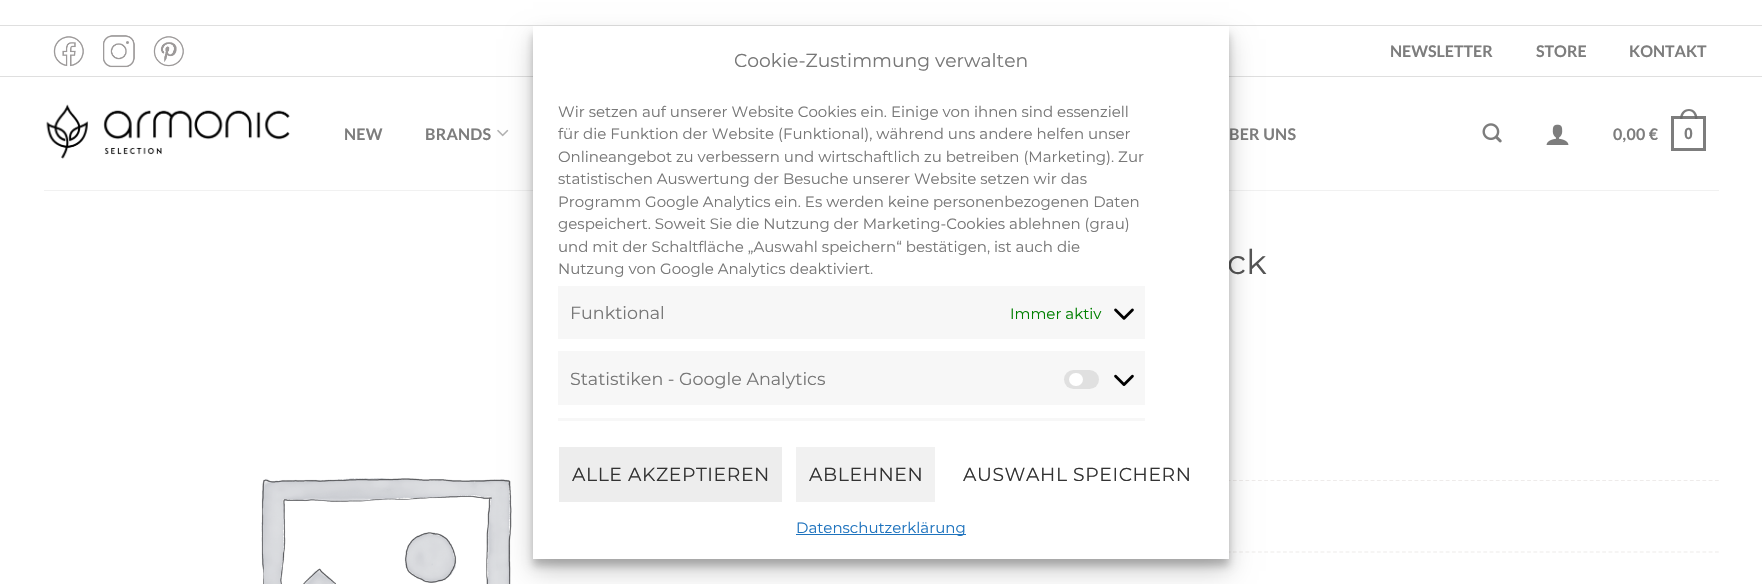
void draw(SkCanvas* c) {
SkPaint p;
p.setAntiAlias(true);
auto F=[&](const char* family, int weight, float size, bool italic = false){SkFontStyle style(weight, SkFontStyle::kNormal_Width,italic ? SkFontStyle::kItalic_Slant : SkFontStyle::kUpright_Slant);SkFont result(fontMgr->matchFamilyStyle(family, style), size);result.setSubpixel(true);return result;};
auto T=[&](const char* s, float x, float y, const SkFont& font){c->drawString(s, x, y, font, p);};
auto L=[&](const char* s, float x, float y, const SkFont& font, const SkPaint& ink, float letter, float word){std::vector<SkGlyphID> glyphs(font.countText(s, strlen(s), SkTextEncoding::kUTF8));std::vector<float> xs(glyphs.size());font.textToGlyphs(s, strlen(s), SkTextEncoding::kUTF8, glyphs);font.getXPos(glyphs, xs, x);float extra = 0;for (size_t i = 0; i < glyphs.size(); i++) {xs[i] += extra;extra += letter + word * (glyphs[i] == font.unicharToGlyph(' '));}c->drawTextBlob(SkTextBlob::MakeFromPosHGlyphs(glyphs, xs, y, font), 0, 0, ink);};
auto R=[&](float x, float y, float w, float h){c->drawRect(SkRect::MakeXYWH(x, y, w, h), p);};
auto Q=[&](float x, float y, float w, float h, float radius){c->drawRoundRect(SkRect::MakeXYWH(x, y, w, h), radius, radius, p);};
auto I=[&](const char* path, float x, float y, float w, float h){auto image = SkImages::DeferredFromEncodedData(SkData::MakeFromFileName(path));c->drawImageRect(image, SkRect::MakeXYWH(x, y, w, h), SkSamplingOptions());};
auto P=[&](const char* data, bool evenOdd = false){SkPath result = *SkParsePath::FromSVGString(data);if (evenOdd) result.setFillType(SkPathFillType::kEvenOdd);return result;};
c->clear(0xffffffff);
p.setColor(0xffdfdfdf);
R(0,25,1762,1);
R(0,76,1762,1);
I("1.png",53,36,31,31);
I("2.png",103,35,32,33);
I("3.png",153,36,31,31);
auto f1 = F("Lato",700,16);
p.setColor(0xff7d7d7d);
T("NEWSLETTER",1390,57,f1);
T("STORE",1536,57,f1);
T("KONTAKT",1629,57,f1);
I("4.png",46,104,244,55);
L("NEW",344,140,f1,p,.25,0);
L("BRANDS",425,140,f1,p,.25,0);
I("5.png",497,129,12,8);
L("BER UNS",1229,140,f1,p,.25,0);
I("6.png",1482,123,20,20);
I("7.png",1546,124,23,21);
L("0,00 €",1613,140,f1,p,.25,0);
p.setStroke(true);
p.setStrokeWidth(3);
c->drawRect(SkRect::MakeXYWH(1672.5,117.5,32,32),p);
p.setStroke(false);
p.setColor(0xd9666666);
c->drawPath(P("M1689 109c5.5 0 8.5 4.5 8.5 10h-17.5c0-5.5 3-10 9-10zm0 2c4 0 6 4 6 8h-12.5c0-4 2-8 6.5-8z",true),p);
auto f2 = F("Liberation Sans",700,16);
p.setColor(0xff7d7d7d);
L("0",1684,139,f2,p,.25,0);
p.setColor(0xfff1f1f1);
R(44,190,1675,1);
auto f3 = F("Montserrat",400,34);
p.setColor(0xff555555);
T("ck",1227,274,f3);
p.setStroke(true);
p.setStrokeWidth(1.2);
p.setColor(0xffeeebea);
p.setPathEffect(SkDashPathEffect::Make({{3.75f,2.51f}}, 0));
c->drawPath(P("M801 480.5h918"),p);
p.setPathEffect(nullptr);
p.setPathEffect(SkDashPathEffect::Make({{3.75f,2.51f}}, 0));
c->drawPath(P("M801 552h918"),p);
p.setPathEffect(nullptr);
I("8.png",261,478,251,106);
p.setStroke(false);
p.setColor(0x3b000000);
p.setMaskFilter(SkMaskFilter::MakeBlur(kNormal_SkBlurStyle, 4));
c->drawRect(SkRect::MakeXYWH(533,34,696,532),p);
p.setMaskFilter(nullptr);
p.setColor(0x30000000);
p.setMaskFilter(SkMaskFilter::MakeBlur(kNormal_SkBlurStyle, 12.5));
c->drawRect(SkRect::MakeXYWH(533,39,696,532),p);
p.setMaskFilter(nullptr);
p.setColor(0xffffffff);
R(533,26,696,533);
auto f4 = F("Montserrat",400,18.75);
p.setColor(0xff777777);
T("Cookie-Zustimmung verwalten",734,67,f4);
auto f5 = F("Montserrat",400,15);
T("Wir setzen auf unserer Website Cookies ein. Einige von ihnen sind essenziell",558,117,f5);
T("für die Funktion der Website (Funktional), während uns andere helfen unser",558,139,f5);
T("Onlineangebot zu verbessern und wirtschaftlich zu betreiben (Marketing). Zur",558,162,f5);
T("statistischen Auswertung der Besuche unserer Website setzen wir das",558,184,f5);
T("Programm Google Analytics ein. Es werden keine personenbezogenen Daten",558,207,f5);
T("gespeichert. Soweit Sie die Nutzung der Marketing-Cookies ablehnen (grau)",558,229,f5);
T("und mit der Schaltfläche „Auswahl speichern“ bestätigen, ist auch die",558,252,f5);
T("Nutzung von Google Analytics deaktiviert.",558,274,f5);
p.setColor(0xfff7f7f7);
R(558,286,587,53);
auto f6 = F("Montserrat",400,17.5);
p.setColor(0xff777777);
T("Funktional",570,319,f6);
p.setColor(0xff008000);
T("Immer aktiv",1010,319,f5);
I("9.png",1114,308,20,12);
p.setColor(0xfff7f7f7);
R(558,351,587,54);
p.setColor(0xff777777);
T("Statistiken - Google Analytics",570,385,f6);
p.setColor(0xffe0e0e0);
Q(1064,370,35,19,9.5);
p.setColor(0xffffffff);
Q(1069,373,14,13,6.5);
I("10.png",1114,374,20,12);
p.setColor(0xfff7f7f7);
R(558,418,587,3);
p.setColor(0xffededed);
R(559,447,223,55);
p.setColor(0xff333333);
L("ALLE AKZEPTIEREN",572,481,f4,p,.6,0);
p.setColor(0xfff1f1f1);
R(796,447,139,55);
p.setColor(0xff333333);
L("ABLEHNEN",809,481,f4,p,.6,0);
L("AUSWAHL SPEICHERN",963,481,f4,p,.6,0);
p.setColor(0xff1e73be);
R(796,534,170,1);
T("Datenschutzerklärung",796,533,f5);
}
